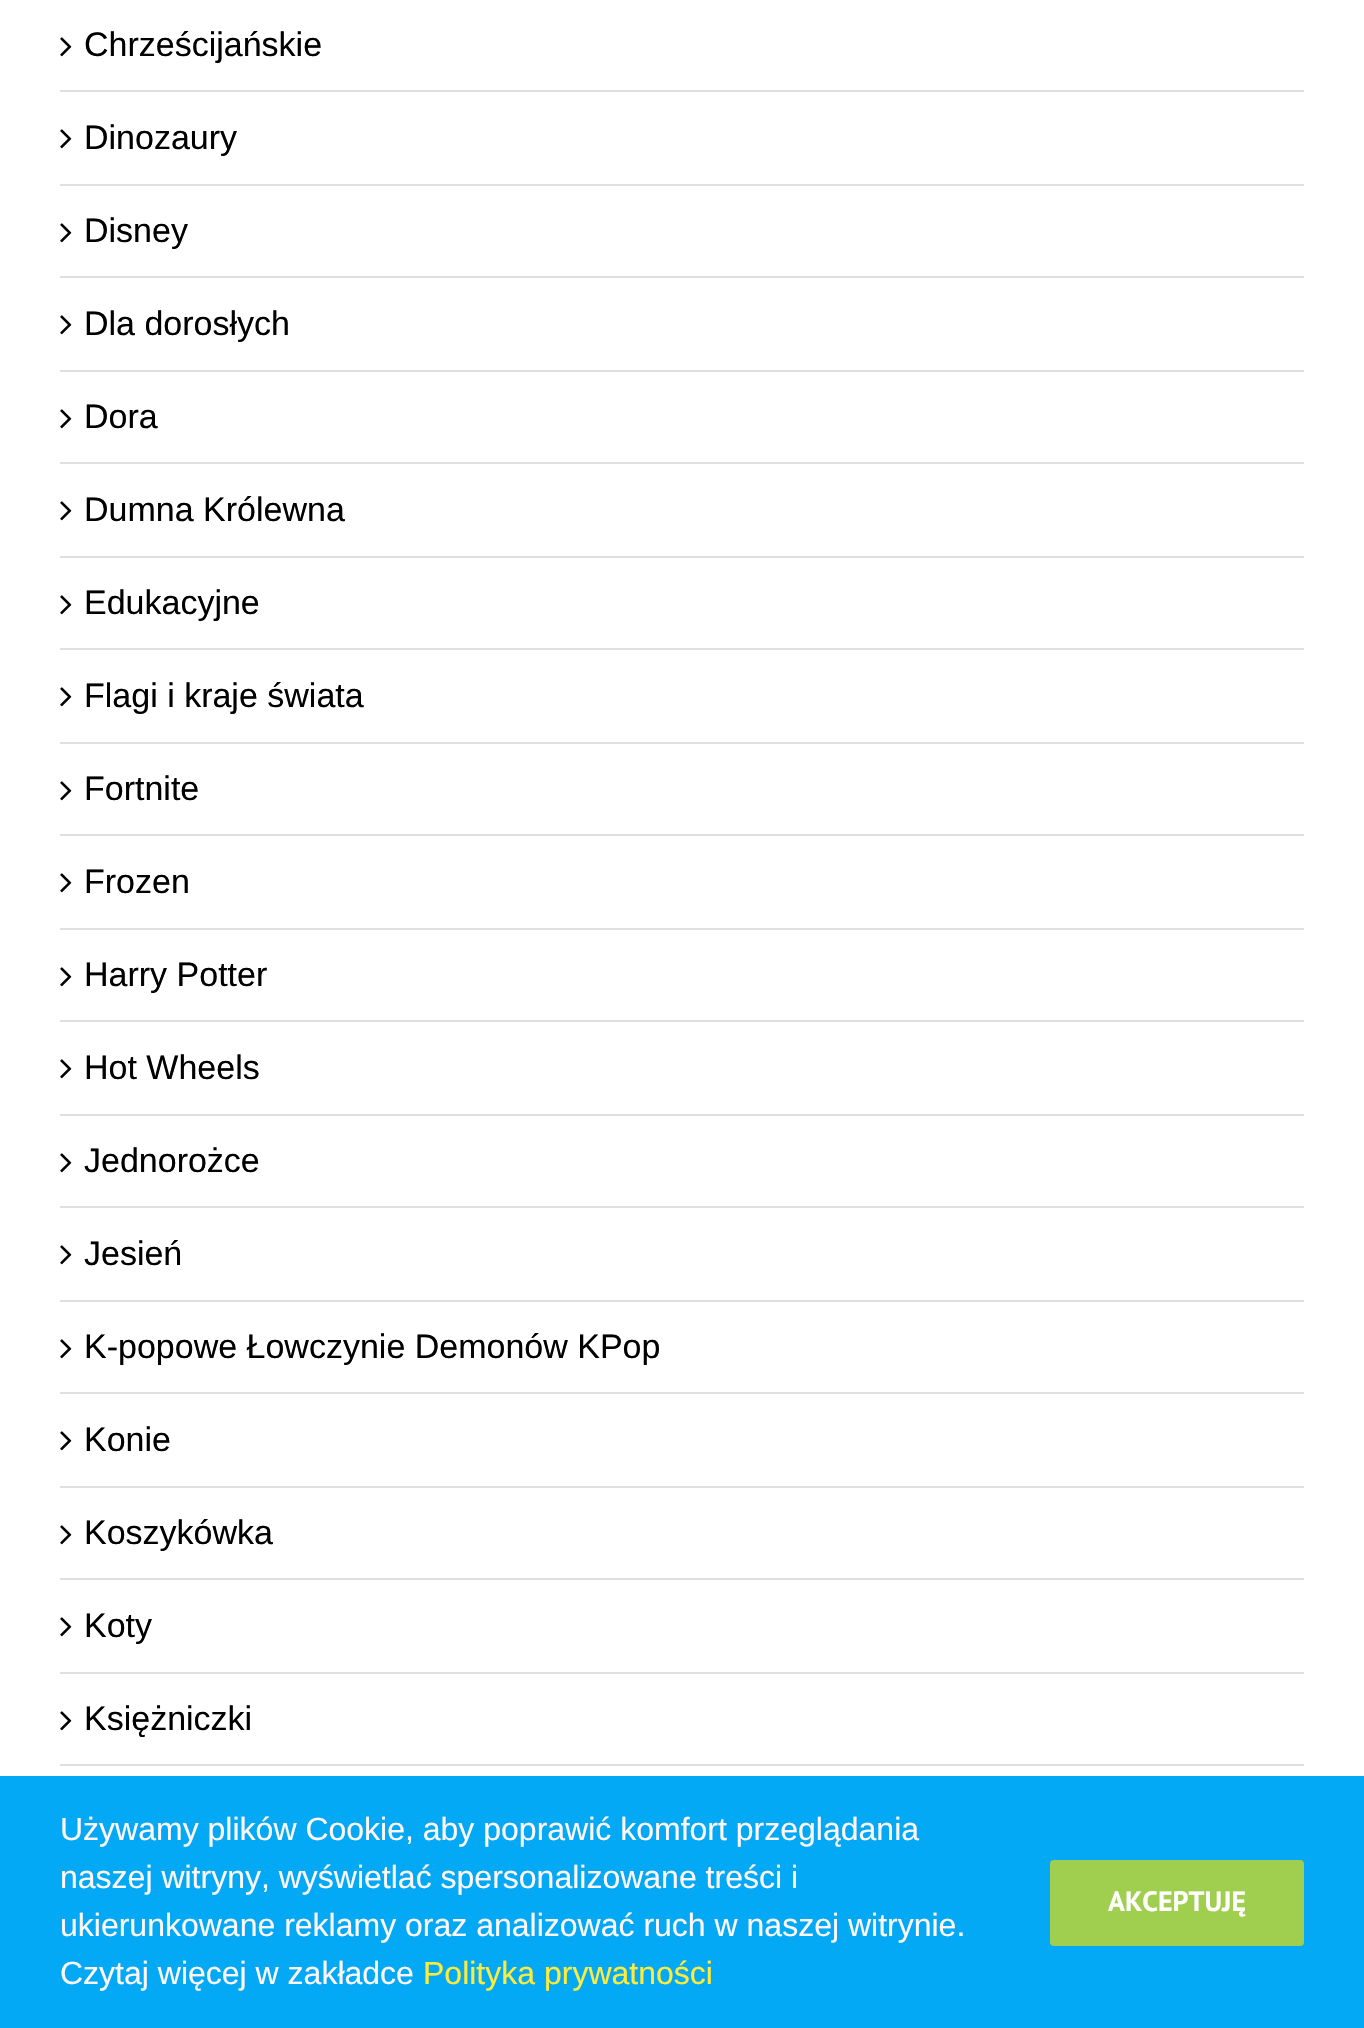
void draw(SkCanvas* c) {
SkPaint p;
p.setAntiAlias(true);
auto F=[&](const char* family, int weight, float size, bool italic = false){SkFontStyle style(weight, SkFontStyle::kNormal_Width,italic ? SkFontStyle::kItalic_Slant : SkFontStyle::kUpright_Slant);SkFont result(fontMgr->matchFamilyStyle(family, style), size);result.setSubpixel(true);return result;};
auto T=[&](const char* s, float x, float y, const SkFont& font){c->drawString(s, x, y, font, p);};
auto R=[&](float x, float y, float w, float h){c->drawRect(SkRect::MakeXYWH(x, y, w, h), p);};
auto Q=[&](float x, float y, float w, float h, float radius){c->drawRoundRect(SkRect::MakeXYWH(x, y, w, h), radius, radius, p);};
auto I=[&](const char* path, float x, float y, float w, float h){auto image = SkImages::DeferredFromEncodedData(SkData::MakeFromFileName(path));c->drawImageRect(image, SkRect::MakeXYWH(x, y, w, h), SkSamplingOptions());};
c->clear(0xffffffff);
p.setColor(0xffe0dede);
R(60,90,1244,2);
I("1.png",60,37,12,20);
auto f1 = F("Liberation Sans",400,34);
p.setColor(0xff000000);
T("Chrześcijańskie",84,56,f1);
p.setColor(0xffe0dede);
R(60,184,1244,2);
I("1.png",60,129,12,20);
p.setColor(0xff000000);
T("Dinozaury",84,149,f1);
p.setColor(0xffe0dede);
R(60,276,1244,2);
I("1.png",60,223,12,20);
p.setColor(0xff000000);
T("Disney",84,242,f1);
p.setColor(0xffe0dede);
R(60,370,1244,2);
I("1.png",60,315,12,20);
p.setColor(0xff000000);
T("Dla dorosłych",84,335,f1);
p.setColor(0xffe0dede);
R(60,462,1244,2);
I("1.png",60,409,12,20);
p.setColor(0xff000000);
T("Dora",84,428,f1);
p.setColor(0xffe0dede);
R(60,556,1244,2);
I("1.png",60,501,12,20);
p.setColor(0xff000000);
T("Dumna Królewna",84,521,f1);
p.setColor(0xffe0dede);
R(60,648,1244,2);
I("1.png",60,595,12,20);
p.setColor(0xff000000);
T("Edukacyjne",84,614,f1);
p.setColor(0xffe0dede);
R(60,742,1244,2);
I("1.png",60,687,12,20);
p.setColor(0xff000000);
T("Flagi i kraje świata",84,707,f1);
p.setColor(0xffe0dede);
R(60,834,1244,2);
I("1.png",60,781,12,20);
p.setColor(0xff000000);
T("Fortnite",84,800,f1);
p.setColor(0xffe0dede);
R(60,928,1244,2);
I("1.png",60,873,12,20);
p.setColor(0xff000000);
T("Frozen",84,893,f1);
p.setColor(0xffe0dede);
R(60,1020,1244,2);
I("1.png",60,967,12,20);
p.setColor(0xff000000);
T("Harry Potter",84,986,f1);
p.setColor(0xffe0dede);
R(60,1114,1244,2);
I("1.png",60,1059,12,20);
p.setColor(0xff000000);
T("Hot Wheels",84,1079,f1);
p.setColor(0xffe0dede);
R(60,1206,1244,2);
I("1.png",60,1153,12,20);
p.setColor(0xff000000);
T("Jednorożce",84,1172,f1);
p.setColor(0xffe0dede);
R(60,1300,1244,2);
I("1.png",60,1245,12,20);
p.setColor(0xff000000);
T("Jesień",84,1265,f1);
p.setColor(0xffe0dede);
R(60,1392,1244,2);
I("1.png",60,1339,12,20);
p.setColor(0xff000000);
T("K-popowe Łowczynie Demonów KPop",84,1358,f1);
p.setColor(0xffe0dede);
R(60,1486,1244,2);
I("1.png",60,1431,12,20);
p.setColor(0xff000000);
T("Konie",84,1451,f1);
p.setColor(0xffe0dede);
R(60,1578,1244,2);
I("1.png",60,1525,12,20);
p.setColor(0xff000000);
T("Koszykówka",84,1544,f1);
p.setColor(0xffe0dede);
R(60,1672,1244,2);
I("1.png",60,1617,12,20);
p.setColor(0xff000000);
T("Koty",84,1637,f1);
p.setColor(0xffe0dede);
R(60,1764,1244,2);
I("1.png",60,1711,12,20);
p.setColor(0xff000000);
T("Księżniczki",84,1730,f1);
p.setColor(0xff03a9f4);
R(0,1776,1364,252);
auto f2 = F("Liberation Sans",400,32);
p.setColor(0xfffff7f7);
T("Używamy plików Cookie, aby poprawić komfort przeglądania",60,1840,f2);
T("naszej witryny, wyświetlać spersonalizowane treści i",60,1888,f2);
T("ukierunkowane reklamy oraz analizować ruch w naszej witrynie.",60,1936,f2);
T("Czytaj więcej w zakładce",60,1984,f2);
p.setColor(0xffffeb3b);
T("Polityka prywatności",423,1984,f2);
p.setColor(0xffa0ce4e);
Q(1050,1860,254,86,4);
auto f3 = F("PT Sans",700,28);
p.setColor(0xffffffff);
T("AKCEPTUJĘ",1108,1911,f3);
}
